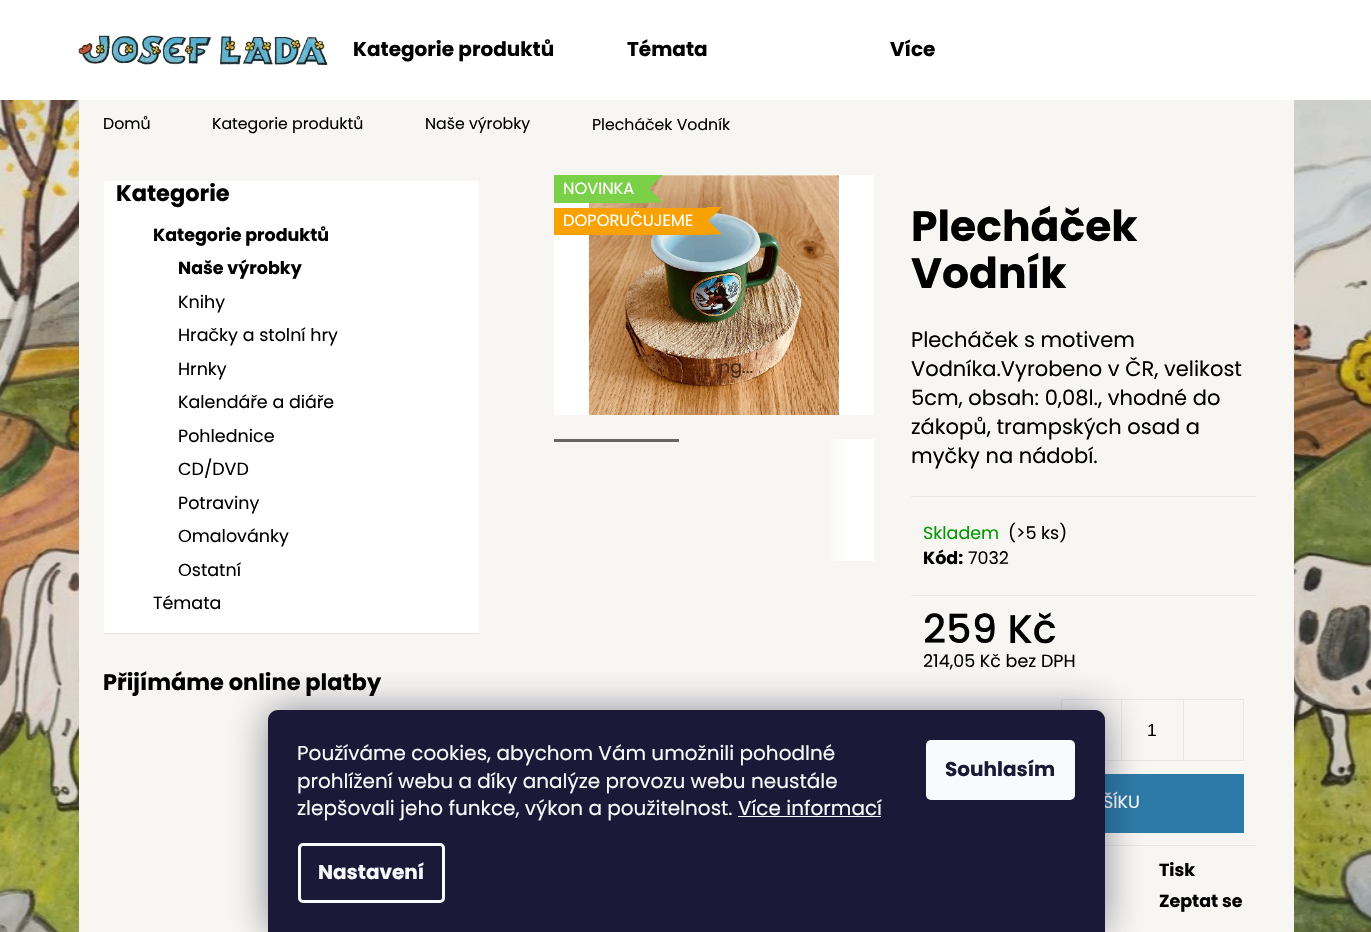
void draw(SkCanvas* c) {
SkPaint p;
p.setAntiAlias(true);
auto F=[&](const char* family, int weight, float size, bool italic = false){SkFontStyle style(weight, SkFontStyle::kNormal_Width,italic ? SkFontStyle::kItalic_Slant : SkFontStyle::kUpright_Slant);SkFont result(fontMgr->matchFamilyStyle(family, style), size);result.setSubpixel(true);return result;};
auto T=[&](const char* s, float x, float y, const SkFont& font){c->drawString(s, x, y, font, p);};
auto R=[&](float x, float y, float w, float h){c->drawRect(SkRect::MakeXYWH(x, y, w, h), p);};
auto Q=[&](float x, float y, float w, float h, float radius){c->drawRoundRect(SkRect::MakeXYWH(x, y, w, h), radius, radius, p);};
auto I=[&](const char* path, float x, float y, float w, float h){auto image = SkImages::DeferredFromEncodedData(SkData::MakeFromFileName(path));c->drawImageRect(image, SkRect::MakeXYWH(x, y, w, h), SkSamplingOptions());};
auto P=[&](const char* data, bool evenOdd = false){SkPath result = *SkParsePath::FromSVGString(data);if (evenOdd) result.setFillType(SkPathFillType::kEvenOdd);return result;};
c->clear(0xffffffff);
I("1.png",0,100,1371,832);
I("2.png",78,35,250,30);
auto f1 = F("Poppins",700,20);
p.setColor(0xff000000);
T("Kategorie produktů",353,56,f1);
T("Témata",627,56,f1);
T("Více",890,56,f1);
p.setColor(0xfff7f6f2);
R(79,100,1215,832);
auto f2 = F("Poppins",400,15.75);
p.setColor(0xff000000);
T("Domů",103,129,f2);
T("Kategorie produktů",212,129,f2);
T("Naše výrobky",425,129,f2);
T("Plecháček Vodník",592,130,f2);
p.setColor(0xffffffff);
R(104,181,375,452);
auto f3 = F("Poppins",700,22.5);
p.setColor(0xff000000);
T("Kategorie",116,201,f3);
auto f4 = F("Poppins",700,17.5);
T("Kategorie produktů",153,241,f4);
T("Naše výrobky",178,274,f4);
auto f5 = F("Poppins",400,17.5);
T("Knihy",178,308,f5);
T("Hračky a stolní hry",178,341,f5);
T("Hrnky",178,375,f5);
T("Kalendáře a diáře",178,408,f5);
T("Pohlednice",178,442,f5);
T("CD/DVD",178,475,f5);
T("Potraviny",178,509,f5);
T("Omalovánky",178,542,f5);
T("Ostatní",178,576,f5);
T("Témata",153,609,f5);
p.setColor(0xffe6e6e6);
R(104,633,375,1);
p.setColor(0xff000000);
T("Přijímáme online platby",103,690,f3);
I("3.png",554,175,320,240);
p.setColor(0xff7ad046);
R(554,175,95,28);
auto f6 = F("Poppins",400,16.25);
p.setColor(0xffffffff);
T("NOVINKA",563,194,f6);
p.setColor(0xff7ad046);
c->drawPath(P("M633 187.5h15l15 15h-15z"),p);
c->drawPath(P("M648 175h15l-15 15h-15z"),p);
p.setColor(0xfff8a102);
R(554,208,154,27);
p.setColor(0xffffffff);
T("DOPORUČUJEME",563,226,f6);
p.setColor(0xfff8a102);
c->drawPath(P("M692 219.5h15l15 15h-15z"),p);
c->drawPath(P("M707 207h15l-15 15h-15z"),p);
p.setColor(0xff442715);
T("ng...",719,373,f5);
p.setColor(0xff656565);
R(554,439,125,3);
{
const SkColor colors[] = {0xfff7f6f2,0xffffffff};
const float stops[] = {0,.5};
const SkPoint ends[] = {{824,500}, {874,500}};
p.setShader(SkGradientShader::MakeLinear(ends, colors, stops, 2, SkTileMode::kClamp));
p.setAlpha(255);
}
R(829,439,45,122);
auto f7 = F("Poppins",700,42.5);
p.setShader(nullptr);
p.setColor(0xff000000);
T("Plecháček",911,241,f7);
T("Vodník",911,288,f7);
auto f8 = F("Poppins",400,21);
T("Plecháček s motivem",911,347,f8);
T("Vodníka.Vyrobeno v ČR, velikost",911,376,f8);
T("5cm, obsah: 0,08l., vhodné do",911,405,f8);
T("zákopů, trampských osad a",911,434,f8);
T("myčky na nádobí.",911,463,f8);
p.setColor(0xffe7e7e7);
R(911,496,345,1);
R(911,595,345,1);
p.setColor(0xff009901);
T("Skladem",923,539,f5);
p.setColor(0xff000000);
T("(>5 ks)",1008,539,f5);
T("Kód:",923,564,f4);
T("7032",968,564,f5);
p.setColor(0xffe7e7e7);
R(1105,845,151,1);
auto f9 = F("Poppins",500,40);
p.setColor(0xff000000);
T("259 Kč",923,643,f9);
T("214,05 Kč bez DPH",923,667,f5);
p.setStroke(true);
p.setStrokeWidth(1);
p.setColor(0xffe6e6e6);
c->drawRect(SkRect::MakeXYWH(1061.5,699.5,182,61),p);
p.setStroke(false);
R(1121,700,1,60);
auto f10 = F("Liberation Sans",400,17.5);
p.setColor(0xff000000);
T("1",1147,736,f10);
p.setColor(0xffe6e6e6);
R(1183,700,1,60);
p.setColor(0xff2d7aa7);
R(1105,774,139,59);
p.setColor(0xffffffff);
T("ŠÍKU",1103,808,f5);
p.setColor(0xff000000);
T("Tisk",1159,876,f4);
T("Zeptat se",1159,907,f4);
p.setColor(0x801b1939);
p.setMaskFilter(SkMaskFilter::MakeBlur(kNormal_SkBlurStyle, 19));
c->drawRoundRect(SkRect::MakeXYWH(268,710,837,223),10,10,p);
p.setMaskFilter(nullptr);
p.setColor(0xff1a1937);
c->drawPath(P("M278 710h817c5.5 0 10 4.5 10 10v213h-837v-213c0-5.5 4.5-10 10-10z"),p);
auto f11 = F("Poppins",400,20);
p.setColor(0xfff8fafb);
T("Používáme cookies, abychom Vám umožnili pohodlné",297,760,f11);
T("prohlížení webu a díky analýze provozu webu neustále",297,788,f11);
T("zlepšovali jeho funkce, výkon a použitelnost. Více informací",297,815,f11);
R(738,816,143,1);
p.setStroke(true);
p.setStrokeWidth(3);
c->drawRoundRect(SkRect::MakeXYWH(299.5,844.5,144,57),3.5,3.5,p);
p.setStroke(false);
T("Nastavení",318,879,f1);
Q(926,740,149,60,5);
p.setColor(0xff1a1937);
T("Souhlasím",945,776,f1);
}
